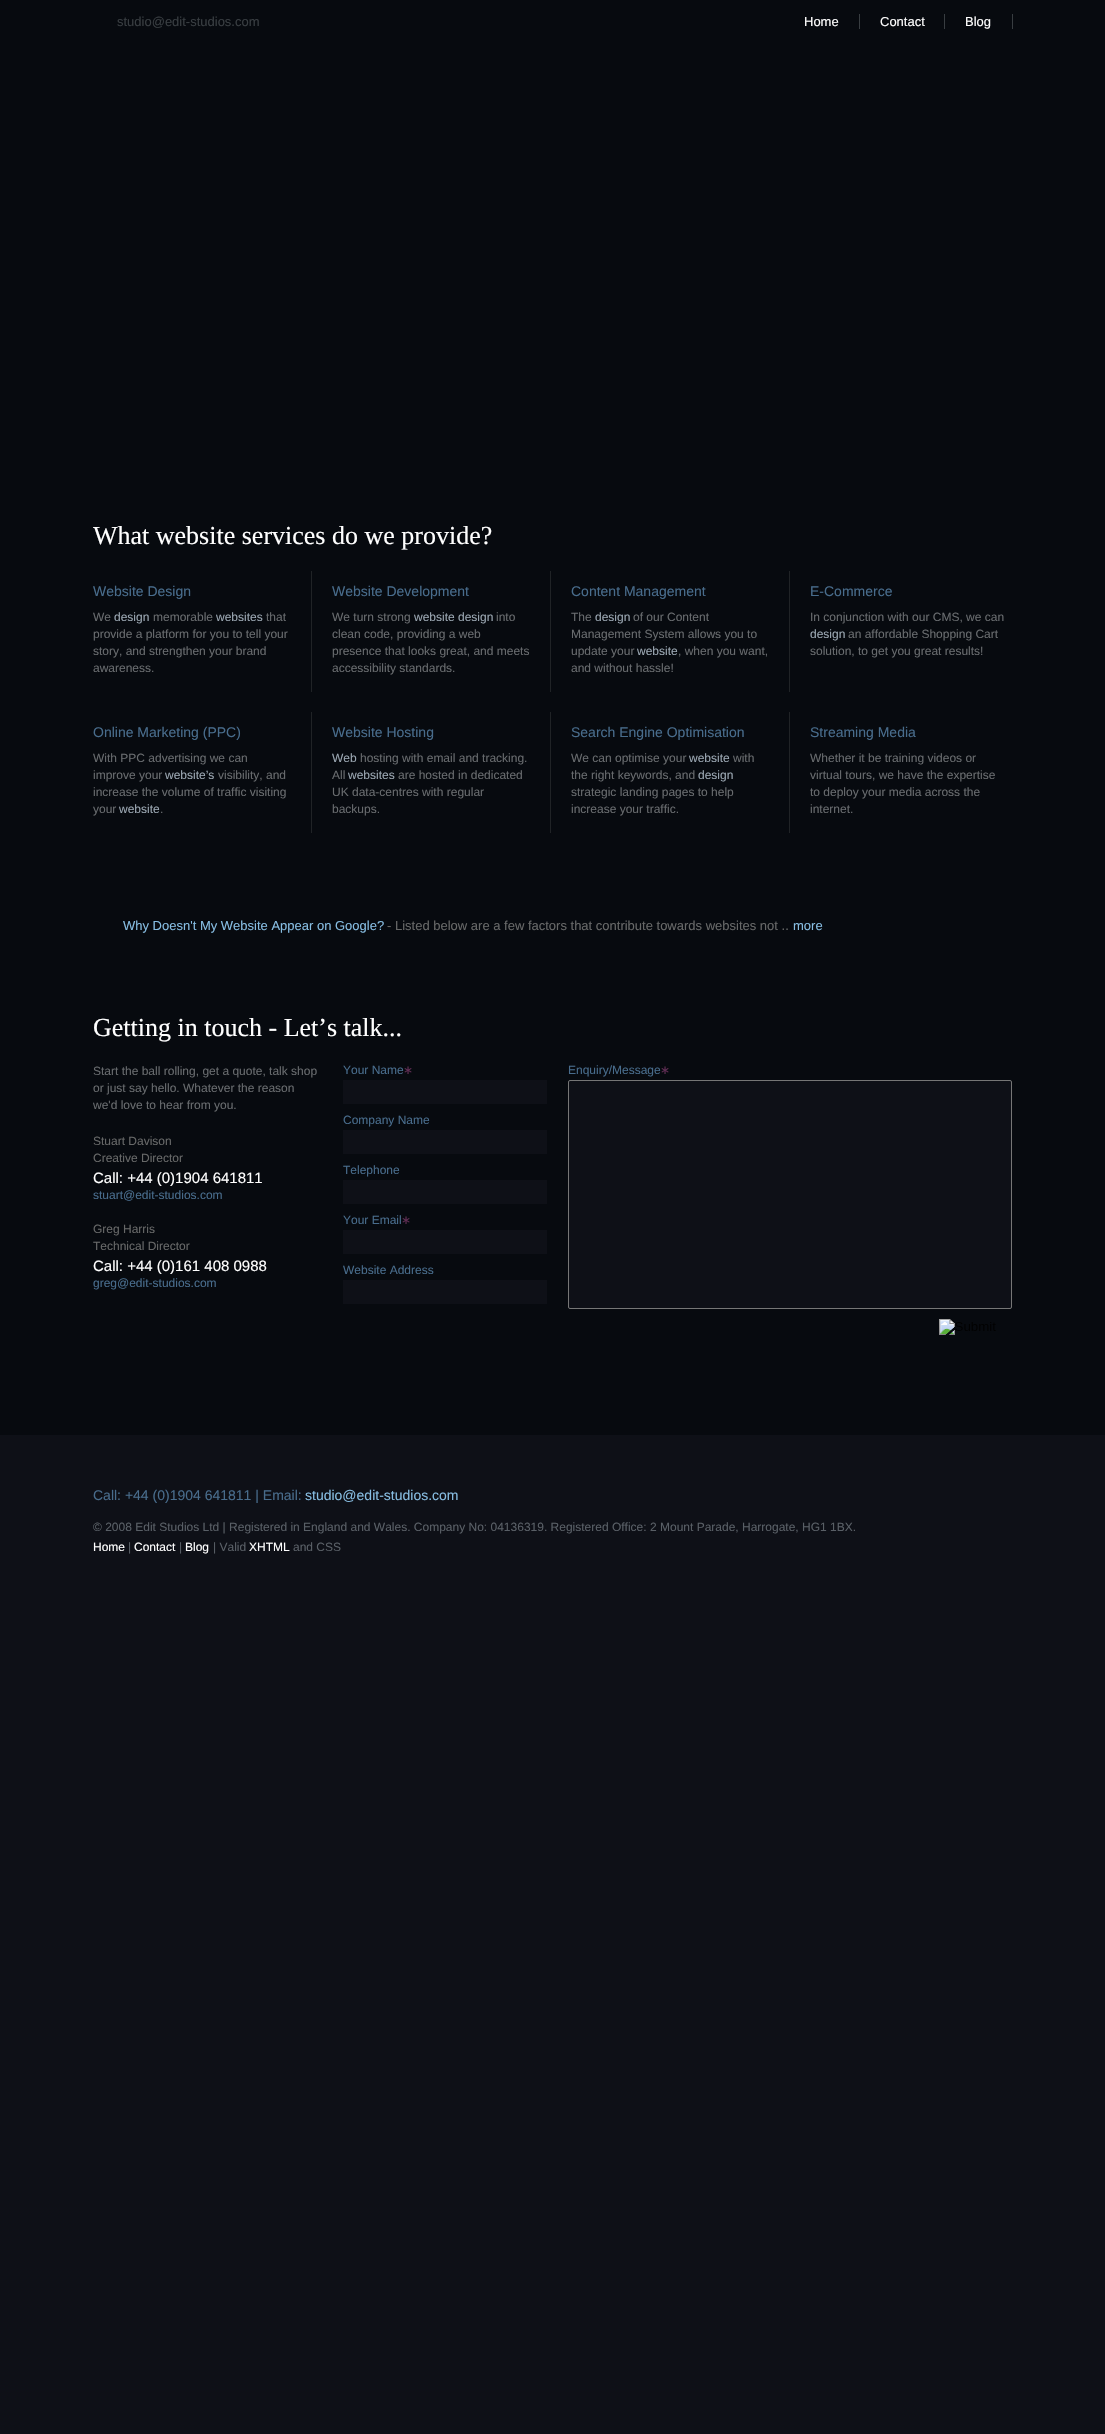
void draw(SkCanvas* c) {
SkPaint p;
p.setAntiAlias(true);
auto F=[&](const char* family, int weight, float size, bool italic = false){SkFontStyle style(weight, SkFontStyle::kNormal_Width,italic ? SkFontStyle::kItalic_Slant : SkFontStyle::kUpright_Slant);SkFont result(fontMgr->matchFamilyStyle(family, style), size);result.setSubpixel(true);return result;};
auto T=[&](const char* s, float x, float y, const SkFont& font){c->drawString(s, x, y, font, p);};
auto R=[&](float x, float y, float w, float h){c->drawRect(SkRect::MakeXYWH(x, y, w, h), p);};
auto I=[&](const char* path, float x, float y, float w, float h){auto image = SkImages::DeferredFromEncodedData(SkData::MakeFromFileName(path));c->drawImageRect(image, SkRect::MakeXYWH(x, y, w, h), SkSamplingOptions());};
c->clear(0xff0e1017);
p.setColor(0xff070a0f);
R(0,0,1105,1435);
auto f1 = F("Liberation Sans",400,13);
p.setColor(0xff383d41);
T("studio@edit-studios.com",117,26,f1);
p.setColor(0xffffffff);
T("Home",804,26,f1);
p.setColor(0xff383d41);
R(859,14,1,15);
p.setColor(0xffffffff);
T("Contact",880,26,f1);
p.setColor(0xff383d41);
R(944,14,1,15);
p.setColor(0xffffffff);
T("Blog",965,26,f1);
p.setColor(0xff383d41);
R(1012,14,1,15);
auto f2 = F("Liberation Serif",400,26);
p.setColor(0xffffffff);
T("What website services do we provide?",93,544,f2);
p.setColor(0xff202326);
R(311,571,1,121);
auto f3 = F("Liberation Sans",400,14);
p.setColor(0xff486c8c);
T("Website Design",93,596,f3);
auto f4 = F("Liberation Sans",400,12);
p.setColor(0xff686b6e);
T("We",93,621,f4);
p.setColor(0xff9ba7b2);
T("design",114,621,f4);
p.setColor(0xff686b6e);
T("memorable",153,621,f4);
p.setColor(0xff9ba7b2);
T("websites",216,621,f4);
p.setColor(0xff686b6e);
T("that",266,621,f4);
T("provide a platform for you to tell your",93,638,f4);
T("story, and strengthen your brand",93,655,f4);
T("awareness.",93,672,f4);
p.setColor(0xff202326);
R(550,571,1,121);
p.setColor(0xff486c8c);
T("Website Development",332,596,f3);
p.setColor(0xff686b6e);
T("We turn strong",332,621,f4);
p.setColor(0xff9ba7b2);
T("website design",414,621,f4);
p.setColor(0xff686b6e);
T("into",496,621,f4);
T("clean code, providing a web",332,638,f4);
T("presence that looks great, and meets",332,655,f4);
T("accessibility standards.",332,672,f4);
p.setColor(0xff202326);
R(789,571,1,121);
p.setColor(0xff486c8c);
T("Content Management",571,596,f3);
p.setColor(0xff686b6e);
T("The",571,621,f4);
p.setColor(0xff9ba7b2);
T("design",595,621,f4);
p.setColor(0xff686b6e);
T("of our Content",633,621,f4);
T("Management System allows you to",571,638,f4);
T("update your",571,655,f4);
p.setColor(0xff9ba7b2);
T("website",637,655,f4);
p.setColor(0xff686b6e);
T(", when you want,",678,655,f4);
T("and without hassle!",571,672,f4);
p.setColor(0xff486c8c);
T("E-Commerce",810,596,f3);
p.setColor(0xff686b6e);
T("In conjunction with our CMS, we can",810,621,f4);
p.setColor(0xff9ba7b2);
T("design",810,638,f4);
p.setColor(0xff686b6e);
T("an affordable Shopping Cart",848,638,f4);
T("solution, to get you great results!",810,655,f4);
p.setColor(0xff202326);
R(311,712,1,121);
p.setColor(0xff486c8c);
T("Online Marketing (PPC)",93,737,f3);
p.setColor(0xff686b6e);
T("With PPC advertising we can",93,762,f4);
T("improve your",93,779,f4);
p.setColor(0xff9ba7b2);
T("website’s",165,779,f4);
p.setColor(0xff686b6e);
T("visibility, and",218,779,f4);
T("increase the volume of traffic visiting",93,796,f4);
T("your",93,813,f4);
p.setColor(0xff9ba7b2);
T("website",119,813,f4);
p.setColor(0xff686b6e);
T(".",160,813,f4);
p.setColor(0xff202326);
R(550,712,1,121);
p.setColor(0xff486c8c);
T("Website Hosting",332,737,f3);
p.setColor(0xff9ba7b2);
T("Web",332,762,f4);
p.setColor(0xff686b6e);
T("hosting with email and tracking.",360,762,f4);
T("All",332,779,f4);
p.setColor(0xff9ba7b2);
T("websites",348,779,f4);
p.setColor(0xff686b6e);
T("are hosted in dedicated",398,779,f4);
T("UK data-centres with regular",332,796,f4);
T("backups.",332,813,f4);
p.setColor(0xff202326);
R(789,712,1,121);
p.setColor(0xff486c8c);
T("Search Engine Optimisation",571,737,f3);
p.setColor(0xff686b6e);
T("We can optimise your",571,762,f4);
p.setColor(0xff9ba7b2);
T("website",689,762,f4);
p.setColor(0xff686b6e);
T("with",733,762,f4);
T("the right keywords, and",571,779,f4);
p.setColor(0xff9ba7b2);
T("design",698,779,f4);
p.setColor(0xff686b6e);
T("strategic landing pages to help",571,796,f4);
T("increase your traffic.",571,813,f4);
p.setColor(0xff486c8c);
T("Streaming Media",810,737,f3);
p.setColor(0xff686b6e);
T("Whether it be training videos or",810,762,f4);
T("virtual tours, we have the expertise",810,779,f4);
T("to deploy your media across the",810,796,f4);
T("internet.",810,813,f4);
p.setColor(0xff87bde2);
T("Why Doesn't My Website Appear on Google?",123,930,f1);
p.setColor(0xff676868);
T("- Listed below are a few factors that contribute towards websites not ..",387,930,f1);
p.setColor(0xff87bde2);
T("more",793,930,f1);
p.setColor(0xffffffff);
T("Getting in touch - Let’s talk...",93,1036,f2);
p.setColor(0xff686b6e);
T("Start the ball rolling, get a quote, talk shop",93,1075,f4);
T("or just say hello. Whatever the reason",93,1092,f4);
T("we'd love to hear from you.",93,1109,f4);
p.setColor(0xff676868);
T("Stuart Davison",93,1145,f4);
T("Creative Director",93,1162,f4);
auto f5 = F("Liberation Sans",400,15);
p.setColor(0xffffffff);
T("Call: +44 (0)1904 641811",93,1183,f5);
p.setColor(0xff486c8c);
T("stuart@edit-studios.com",93,1199,f4);
p.setColor(0xff676868);
T("Greg Harris",93,1233,f4);
T("Technical Director",93,1250,f4);
p.setColor(0xffffffff);
T("Call: +44 (0)161 408 0988",93,1271,f5);
p.setColor(0xff486c8c);
T("greg@edit-studios.com",93,1287,f4);
T("Your Name",343,1074,f4);
auto f6 = F("DejaVu Sans",400,12);
p.setColor(0xff612d54);
T("∗",403,1074,f6);
p.setColor(0xff0e1017);
R(343,1080,204,24);
p.setColor(0xff486c8c);
T("Company Name",343,1124,f4);
p.setColor(0xff0e1017);
R(343,1130,204,24);
p.setColor(0xff486c8c);
T("Telephone",343,1174,f4);
p.setColor(0xff0e1017);
R(343,1180,204,24);
p.setColor(0xff486c8c);
T("Your Email",343,1224,f4);
p.setColor(0xff612d54);
T("∗",401,1224,f6);
p.setColor(0xff0e1017);
R(343,1230,204,24);
p.setColor(0xff486c8c);
T("Website Address",343,1274,f4);
p.setColor(0xff0e1017);
R(343,1280,204,24);
p.setColor(0xff486c8c);
T("Enquiry/Message",568,1074,f4);
p.setColor(0xff612d54);
T("∗",660,1074,f6);
p.setColor(0xff0e1017);
c->drawRoundRect(SkRect::MakeXYWH(568.5,1080.5,443,228),1.5,1.5,p);
p.setStroke(true);
p.setStrokeWidth(1);
p.setColor(0xff767676);
c->drawRoundRect(SkRect::MakeXYWH(568.5,1080.5,443,228),1.5,1.5,p);
I("1.png",939,1319,57,16);
p.setStroke(false);
p.setColor(0xff486c8c);
T("Call: +44 (0)1904 641811 | Email:",93,1500,f3);
p.setColor(0xff87bde2);
T("studio@edit-studios.com",305,1500,f3);
p.setColor(0xff595f66);
T("© 2008 Edit Studios Ltd | Registered in England and Wales. Company No: 04136319. Registered Office: 2 Mount Parade, Harrogate, HG1 1BX.",93,1531,f4);
p.setColor(0xffffffff);
T("Home",93,1551,f4);
p.setColor(0xff595f66);
T("|",128,1551,f4);
p.setColor(0xffffffff);
T("Contact",134,1551,f4);
p.setColor(0xff595f66);
T("|",179,1551,f4);
p.setColor(0xffffffff);
T("Blog",185,1551,f4);
p.setColor(0xff595f66);
T("| Valid",213,1551,f4);
p.setColor(0xffffffff);
T("XHTML",249,1551,f4);
p.setColor(0xff595f66);
T("and CSS",293,1551,f4);
}
